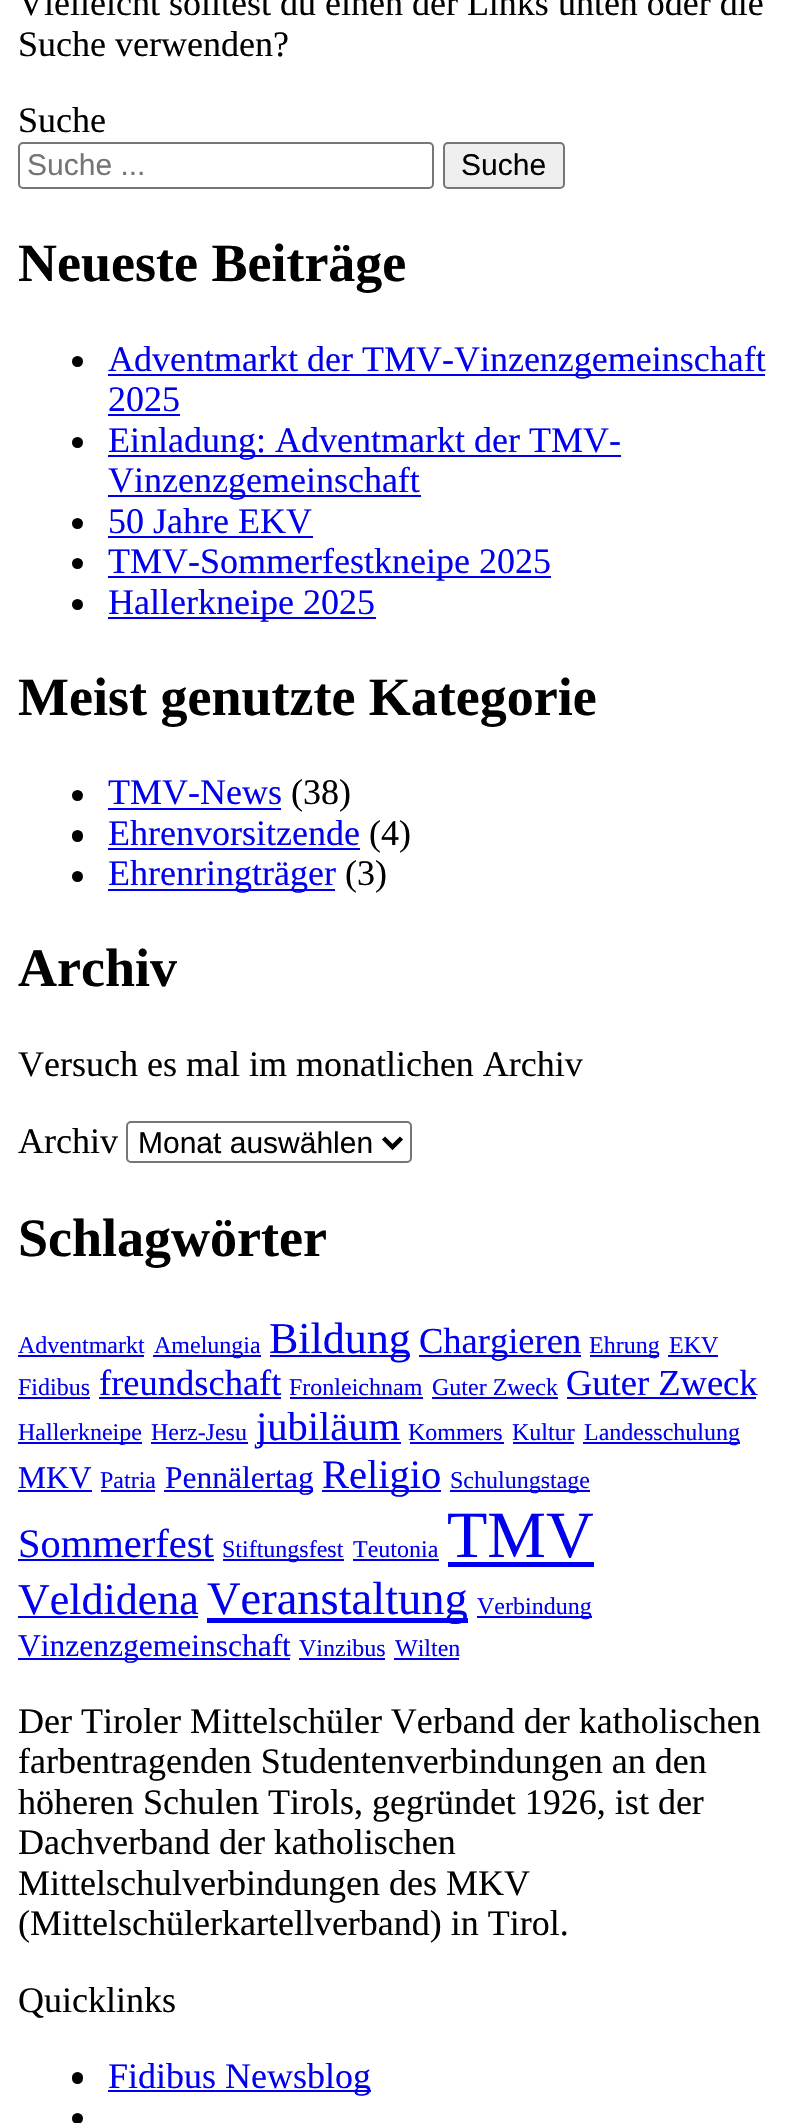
void draw(SkCanvas* c) {
SkPaint p;
p.setAntiAlias(true);
auto F=[&](const char* family, int weight, float size, bool italic = false){SkFontStyle style(weight, SkFontStyle::kNormal_Width,italic ? SkFontStyle::kItalic_Slant : SkFontStyle::kUpright_Slant);SkFont result(fontMgr->matchFamilyStyle(family, style), size);result.setSubpixel(true);return result;};
auto T=[&](const char* s, float x, float y, const SkFont& font){c->drawString(s, x, y, font, p);};
auto R=[&](float x, float y, float w, float h){c->drawRect(SkRect::MakeXYWH(x, y, w, h), p);};
auto Q=[&](float x, float y, float w, float h, float radius){c->drawRoundRect(SkRect::MakeXYWH(x, y, w, h), radius, radius, p);};
auto P=[&](const char* data, bool evenOdd = false){SkPath result = *SkParsePath::FromSVGString(data);if (evenOdd) result.setFillType(SkPathFillType::kEvenOdd);return result;};
c->clear(0xffffffff);
auto f1 = F("Liberation Serif",400,36);
p.setColor(0xff000000);
T("Vielleicht solltest du einen der Links unten oder die",18,15,f1);
T("Suche verwenden?",18,56,f1);
T("Suche",18,132,f1);
p.setStroke(true);
p.setStrokeWidth(2);
p.setColor(0xff767676);
c->drawRoundRect(SkRect::MakeXYWH(19,143,414,45),4,4,p);
auto f2 = F("Liberation Sans",400,30);
p.setStroke(false);
p.setColor(0xff757575);
T("Suche ...",27,175,f2);
p.setColor(0xffefefef);
c->drawRoundRect(SkRect::MakeXYWH(444,143,120,45),4,4,p);
p.setStroke(true);
p.setColor(0xff767676);
c->drawRoundRect(SkRect::MakeXYWH(444,143,120,45),4,4,p);
p.setStroke(false);
p.setColor(0xff000000);
T("Suche",461,175,f2);
auto f3 = F("Liberation Serif",700,54);
T("Neueste Beiträge",18,281,f3);
c->drawCircle(77.5,361.5,5.5,p);
p.setColor(0xff0000ee);
R(108,374,657,2);
T("Adventmarkt der TMV-Vinzenzgemeinschaft",108,371,f1);
T("2025",108,411,f1);
R(108,414,72,2);
p.setColor(0xff000000);
c->drawCircle(77.5,442.5,5.5,p);
p.setColor(0xff0000ee);
R(108,455,513,2);
T("Einladung: Adventmarkt der TMV-",108,452,f1);
R(108,495,313,2);
T("Vinzenzgemeinschaft",108,492,f1);
p.setColor(0xff000000);
c->drawCircle(77.5,523.5,5.5,p);
p.setColor(0xff0000ee);
T("50 Jahre EKV",108,533,f1);
R(108,536,205,2);
p.setColor(0xff000000);
c->drawCircle(77.5,563.5,5.5,p);
p.setColor(0xff0000ee);
R(108,576,443,2);
T("TMV-Sommerfestkneipe 2025",108,573,f1);
p.setColor(0xff000000);
c->drawCircle(77.5,604.5,5.5,p);
p.setColor(0xff0000ee);
R(108,617,268,2);
T("Hallerkneipe 2025",108,614,f1);
p.setColor(0xff000000);
T("Meist genutzte Kategorie",18,715,f3);
c->drawCircle(77.5,795.5,5.5,p);
p.setColor(0xff0000ee);
T("TMV-News",108,804,f1);
R(108,808,173,2);
p.setColor(0xff000000);
T("(38)",291,804,f1);
Q(72,830,11,12,5.5);
p.setColor(0xff0000ee);
T("Ehrenvorsitzende",108,845,f1);
R(108,848,252,2);
p.setColor(0xff000000);
T("(4)",369,845,f1);
c->drawCircle(77.5,876.5,5.5,p);
p.setColor(0xff0000ee);
R(108,889,227,2);
T("Ehrenringträger",108,885,f1);
p.setColor(0xff000000);
T("(3)",345,885,f1);
T("Archiv",18,986,f3);
T("Versuch es mal im monatlichen Archiv",18,1076,f1);
T("Archiv",18,1153,f1);
p.setStroke(true);
p.setColor(0xff767676);
c->drawRoundRect(SkRect::MakeXYWH(127,1122,284,40),4,4,p);
p.setStrokeWidth(4.5);
p.setColor(0xff000000);
c->drawPath(P("M383.5 1138l9 9l9-9"),p);
p.setStroke(false);
T("Monat auswählen",138,1153,f2);
T("Schlagwörter",18,1256,f3);
auto f4 = F("Liberation Serif",400,24);
p.setColor(0xff0000ee);
T("Adventmarkt",18,1353,f4);
R(18,1355,126,2);
R(153,1355,108,2);
T("Amelungia",154,1353,f4);
R(270,1355,140,2);
auto f5 = F("Liberation Serif",400,44);
T("Bildung",269,1353,f5);
R(419,1355,162,2);
auto f6 = F("Liberation Serif",400,36.5);
T("Chargieren",419,1353,f6);
R(590,1355,69,2);
T("Ehrung",589,1353,f4);
T("EKV",669,1353,f4);
R(668,1355,50,2);
T("Fidibus",18,1395,f4);
R(18,1397,72,2);
T("freundschaft",99,1395,f6);
R(99,1397,182,2);
T("Fronleichnam",289,1395,f4);
R(290,1397,133,2);
T("Guter Zweck",432,1395,f4);
R(432,1397,126,2);
T("Guter Zweck",566,1395,f6);
R(567,1397,189,2);
R(18,1442,124,2);
T("Hallerkneipe",18,1440,f4);
T("Herz-Jesu",151,1440,f4);
R(151,1442,97,2);
R(257,1442,144,2);
auto f7 = F("Liberation Serif",400,40.5);
T("jubiläum",256,1440,f7);
T("Kommers",408,1440,f4);
R(410,1442,94,2);
T("Kultur",512,1440,f4);
R(513,1442,61,2);
R(583,1442,157,2);
T("Landesschulung",584,1440,f4);
auto f8 = F("Liberation Serif",400,31.5);
T("MKV",18,1488,f8);
R(18,1490,74,2);
T("Patria",100,1488,f4);
R(101,1490,54,2);
R(164,1490,149,2);
T("Pennälertag",165,1488,f8);
R(322,1490,119,2);
T("Religio",322,1488,f7);
R(450,1490,140,2);
T("Schulungstage",450,1488,f4);
T("Sommerfest",18,1557,f7);
R(18,1559,196,2);
R(223,1559,121,2);
T("Stiftungsfest",222,1557,f4);
T("Teutonia",353,1557,f4);
R(353,1559,86,2);
auto f9 = F("Liberation Serif",400,66);
T("TMV",447,1557,f9);
R(448,1562,146,5);
T("Veldidena",18,1614,f5);
R(18,1616,180,2);
R(207,1618,261,5);
auto f10 = F("Liberation Serif",400,46.5);
T("Veranstaltung",207,1614,f10);
R(477,1616,115,2);
T("Verbindung",477,1614,f4);
R(18,1658,272,2);
T("Vinzenzgemeinschaft",18,1656,f8);
T("Vinzibus",299,1656,f4);
R(299,1658,86,2);
T("Wilten",395,1656,f4);
R(394,1658,65,2);
p.setColor(0xff000000);
T("Der Tiroler Mittelschüler Verband der katholischen",18,1733,f1);
T("farbentragenden Studentenverbindungen an den",18,1773,f1);
T("höheren Schulen Tirols, gegründet 1926, ist der",18,1814,f1);
T("Dachverband der katholischen",18,1854,f1);
T("Mittelschulverbindungen des MKV",18,1895,f1);
T("(Mittelschülerkartellverband) in Tirol.",18,1935,f1);
T("Quicklinks",18,2012,f1);
Q(72,2072,11,12,5.5);
p.setColor(0xff0000ee);
R(108,2090,263,2);
T("Fidibus Newsblog",108,2088,f1);
p.setColor(0xff000000);
c->drawCircle(77.5,2118.5,5.5,p);
}
